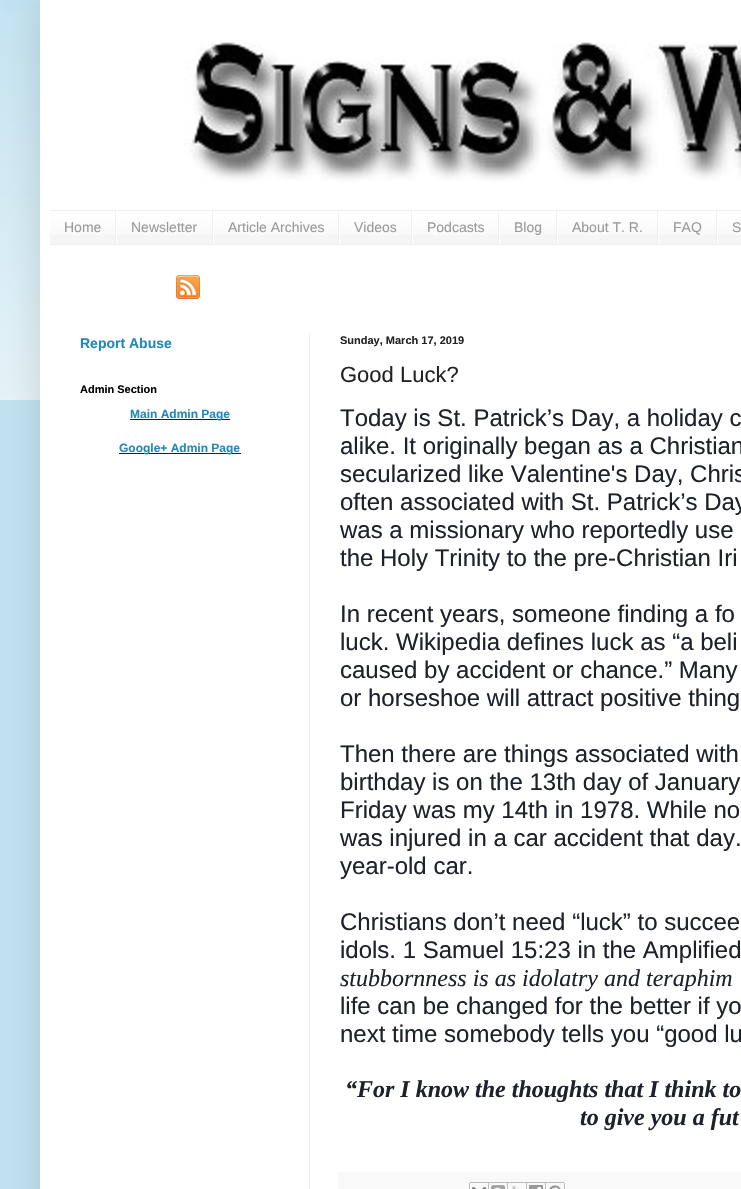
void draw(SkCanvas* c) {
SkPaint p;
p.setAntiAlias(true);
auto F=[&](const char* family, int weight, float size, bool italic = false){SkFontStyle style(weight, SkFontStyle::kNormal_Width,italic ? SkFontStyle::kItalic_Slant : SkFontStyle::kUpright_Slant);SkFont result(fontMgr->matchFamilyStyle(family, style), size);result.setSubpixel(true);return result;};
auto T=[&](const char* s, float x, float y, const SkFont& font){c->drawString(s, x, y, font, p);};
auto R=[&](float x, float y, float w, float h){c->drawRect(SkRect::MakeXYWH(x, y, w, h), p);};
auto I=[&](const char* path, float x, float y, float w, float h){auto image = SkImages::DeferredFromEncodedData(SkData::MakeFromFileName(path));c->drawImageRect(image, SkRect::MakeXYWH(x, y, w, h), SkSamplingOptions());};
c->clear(0xffc2e4f2);
I("1.png",0,10,40,390);
p.setColor(0x26000000);
p.setMaskFilter(SkMaskFilter::MakeBlur(kNormal_SkBlurStyle, 20));
c->drawRect(SkRect::MakeXYWH(40,0,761,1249),p);
p.setMaskFilter(nullptr);
p.setColor(0xffffffff);
R(40,0,701,1189);
I("2.png",184,42,557,140);
p.setColor(0xfff5f5f5);
R(50,212,691,32);
I("3.png",50,211,691,24);
p.setColor(0xffeeeeee);
R(50,210,691,1);
R(50,244,691,1);
R(115,211,1,33);
auto f1 = F("Liberation Sans",400,14);
p.setColor(0xff999999);
T("Home",64,232,f1);
p.setColor(0xffeeeeee);
R(212,211,1,33);
p.setColor(0xffffffff);
R(116,222,1,22);
p.setColor(0xff999999);
T("Newsletter",131,232,f1);
p.setColor(0xffeeeeee);
R(338,211,1,33);
p.setColor(0xffffffff);
R(213,222,1,22);
p.setColor(0xff999999);
T("Article Archives",228,232,f1);
p.setColor(0xffeeeeee);
R(411,211,1,33);
p.setColor(0xffffffff);
R(339,222,1,22);
p.setColor(0xff999999);
T("Videos",354,232,f1);
p.setColor(0xffeeeeee);
R(498,211,1,33);
p.setColor(0xffffffff);
R(412,222,1,22);
p.setColor(0xff999999);
T("Podcasts",427,232,f1);
p.setColor(0xffeeeeee);
R(556,211,1,33);
p.setColor(0xffffffff);
R(499,222,1,22);
p.setColor(0xff999999);
T("Blog",514,232,f1);
p.setColor(0xffeeeeee);
R(657,211,1,33);
p.setColor(0xffffffff);
R(557,222,1,22);
p.setColor(0xff999999);
T("About T. R.",572,232,f1);
p.setColor(0xffeeeeee);
R(716,211,1,33);
p.setColor(0xffffffff);
R(658,222,1,22);
p.setColor(0xff999999);
T("FAQ",673,232,f1);
p.setColor(0xffffffff);
R(717,222,1,22);
p.setColor(0xff999999);
T("S",732,232,f1);
I("4.png",176,275,24,24);
p.setColor(0xffeeeeee);
R(309,334,1,855);
auto f2 = F("Liberation Sans",700,14);
p.setColor(0xff2288bb);
T("Report Abuse",80,348,f2);
auto f3 = F("Liberation Sans",700,11);
p.setColor(0xff000000);
T("Admin Section",80,393,f3);
p.setColor(0xff222222);
R(130,419,100,1);
auto f4 = F("Liberation Sans",700,12);
p.setColor(0xff2288bb);
T("Main Admin Page",130,418,f4);
p.setColor(0xff222222);
R(119,453,122,1);
p.setColor(0xff2288bb);
T("Google+ Admin Page",119,452,f4);
p.setColor(0xff222222);
T("Sunday, March 17, 2019",340,344,f3);
auto f5 = F("Liberation Sans",400,22);
T("Good Luck?",340,382,f5);
auto f6 = F("Liberation Sans",400,24);
p.setColor(0xff1d2129);
T("Today is St. Patrick’s Day, a holiday c",340,426,f6);
T("alike. It originally began as a Christian",340,454,f6);
T("secularized like Valentine's Day, Chris",340,482,f6);
T("often associated with St. Patrick’s Day",340,510,f6);
T("was a missionary who reportedly use",340,538,f6);
T("the Holy Trinity to the pre-Christian Iri",340,566,f6);
T("In recent years, someone finding a fo",340,622,f6);
T("luck. Wikipedia defines luck as “a beli",340,650,f6);
T("caused by accident or chance.” Many",340,678,f6);
T("or horseshoe will attract positive thing",340,706,f6);
T("Then there are things associated with",340,762,f6);
T("birthday is on the 13th day of January",340,790,f6);
T("Friday was my 14th in 1978. While no",340,818,f6);
T("was injured in a car accident that day.",340,846,f6);
T("year-old car.",340,874,f6);
T("Christians don’t need “luck” to succee",340,930,f6);
T("idols. 1 Samuel 15:23 in the Amplified",340,958,f6);
auto f7 = F("Liberation Serif",400,24,true);
T("stubbornness is as idolatry and teraphim",340,986,f7);
T("life can be changed for the better if yo",340,1014,f6);
T("next time somebody tells you “good lu",340,1042,f6);
auto f8 = F("Liberation Serif",700,24,true);
T("“For I know the thoughts that I think to",345,1097,f8);
T("to give you a fut",580,1125,f8);
p.setColor(0xfff9f9f9);
R(338,1172,403,17);
I("5.png",469,1182,20,7);
I("6.png",489,1182,19,7);
I("7.png",508,1182,19,7);
I("8.png",527,1182,19,7);
I("9.png",546,1182,19,7);
}
